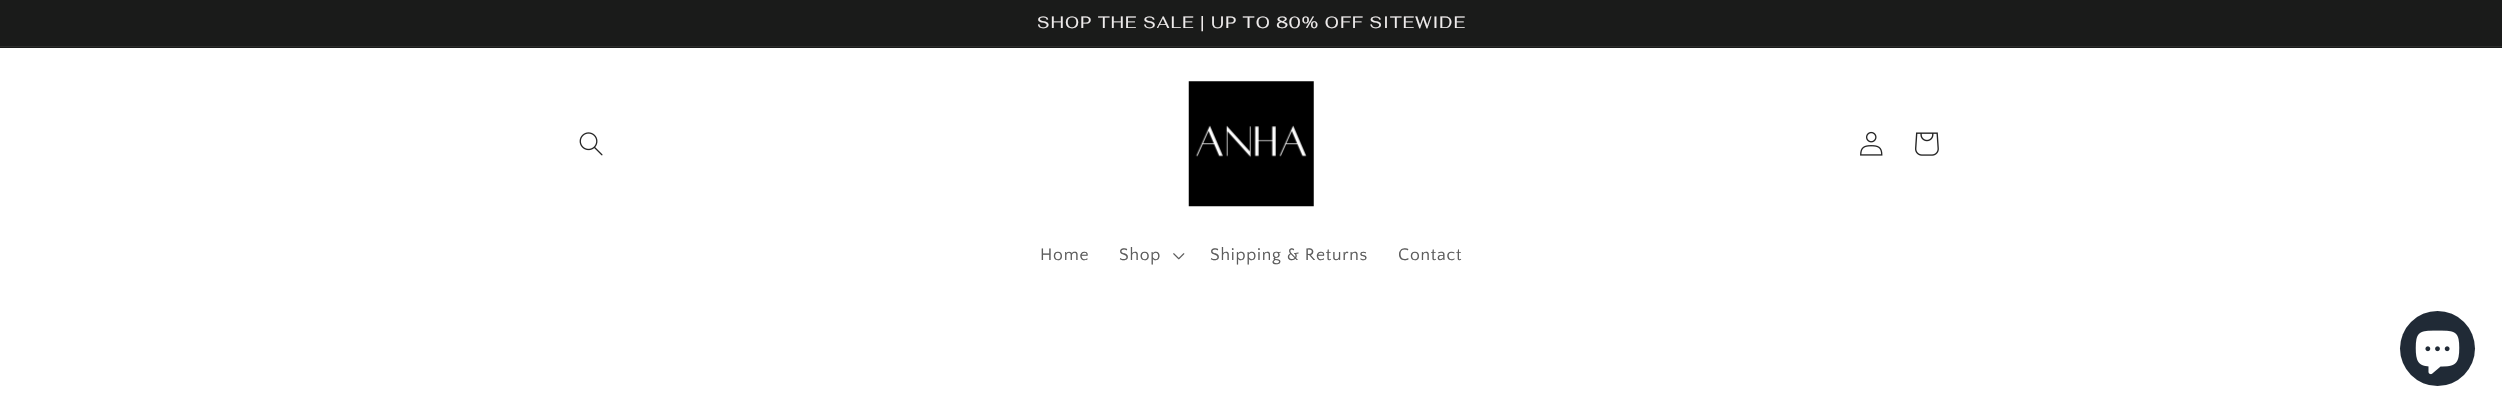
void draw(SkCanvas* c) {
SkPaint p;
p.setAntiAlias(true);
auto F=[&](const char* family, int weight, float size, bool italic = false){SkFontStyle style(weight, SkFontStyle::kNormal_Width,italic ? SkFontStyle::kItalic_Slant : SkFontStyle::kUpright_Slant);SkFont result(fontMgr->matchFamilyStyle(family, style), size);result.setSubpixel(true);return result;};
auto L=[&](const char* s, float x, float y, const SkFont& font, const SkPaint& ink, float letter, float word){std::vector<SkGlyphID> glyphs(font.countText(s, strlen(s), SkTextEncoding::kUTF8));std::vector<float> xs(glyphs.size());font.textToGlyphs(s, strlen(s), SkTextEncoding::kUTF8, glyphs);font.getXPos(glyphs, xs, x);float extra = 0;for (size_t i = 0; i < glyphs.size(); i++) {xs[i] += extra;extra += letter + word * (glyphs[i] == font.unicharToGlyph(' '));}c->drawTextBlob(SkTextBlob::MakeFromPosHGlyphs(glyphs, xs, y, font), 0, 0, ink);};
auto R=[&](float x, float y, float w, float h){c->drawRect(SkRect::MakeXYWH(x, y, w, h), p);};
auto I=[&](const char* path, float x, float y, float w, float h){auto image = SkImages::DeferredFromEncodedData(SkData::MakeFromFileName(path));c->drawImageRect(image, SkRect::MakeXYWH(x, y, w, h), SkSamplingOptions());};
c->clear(0xffffffff);
p.setColor(0xff1a1b1a);
R(0,0,2502,48);
p.setColor(0xff2b2c2b);
R(0,46,2502,1);
auto f1 = F("Fahkwang",400,16.25);
p.setColor(0xffefecec);
L("SHOP THE SALE | UP TO 80% OFF SITEWIDE",1037,28,f1,p,1.25,0);
I("1.png",579,132,24,24);
I("2.png",1188,81,126,126);
I("3.png",1860,131,23,25);
I("4.png",1915,132,24,24);
auto f2 = F("Quattrocento Sans",400,17.5);
p.setColor(0xff5c5c5c);
L("Home",1040,260,f2,p,.75,0);
L("Shop",1119,260,f2,p,.75,0);
I("5.png",1173,253,12,7);
L("Shipping & Returns",1210,260,f2,p,.75,0);
L("Contact",1398,260,f2,p,.75,0);
p.setColor(0xff202a36);
c->drawCircle(2437.5,348.5,37.5,p);
I("6.png",2415,330,45,45);
}
